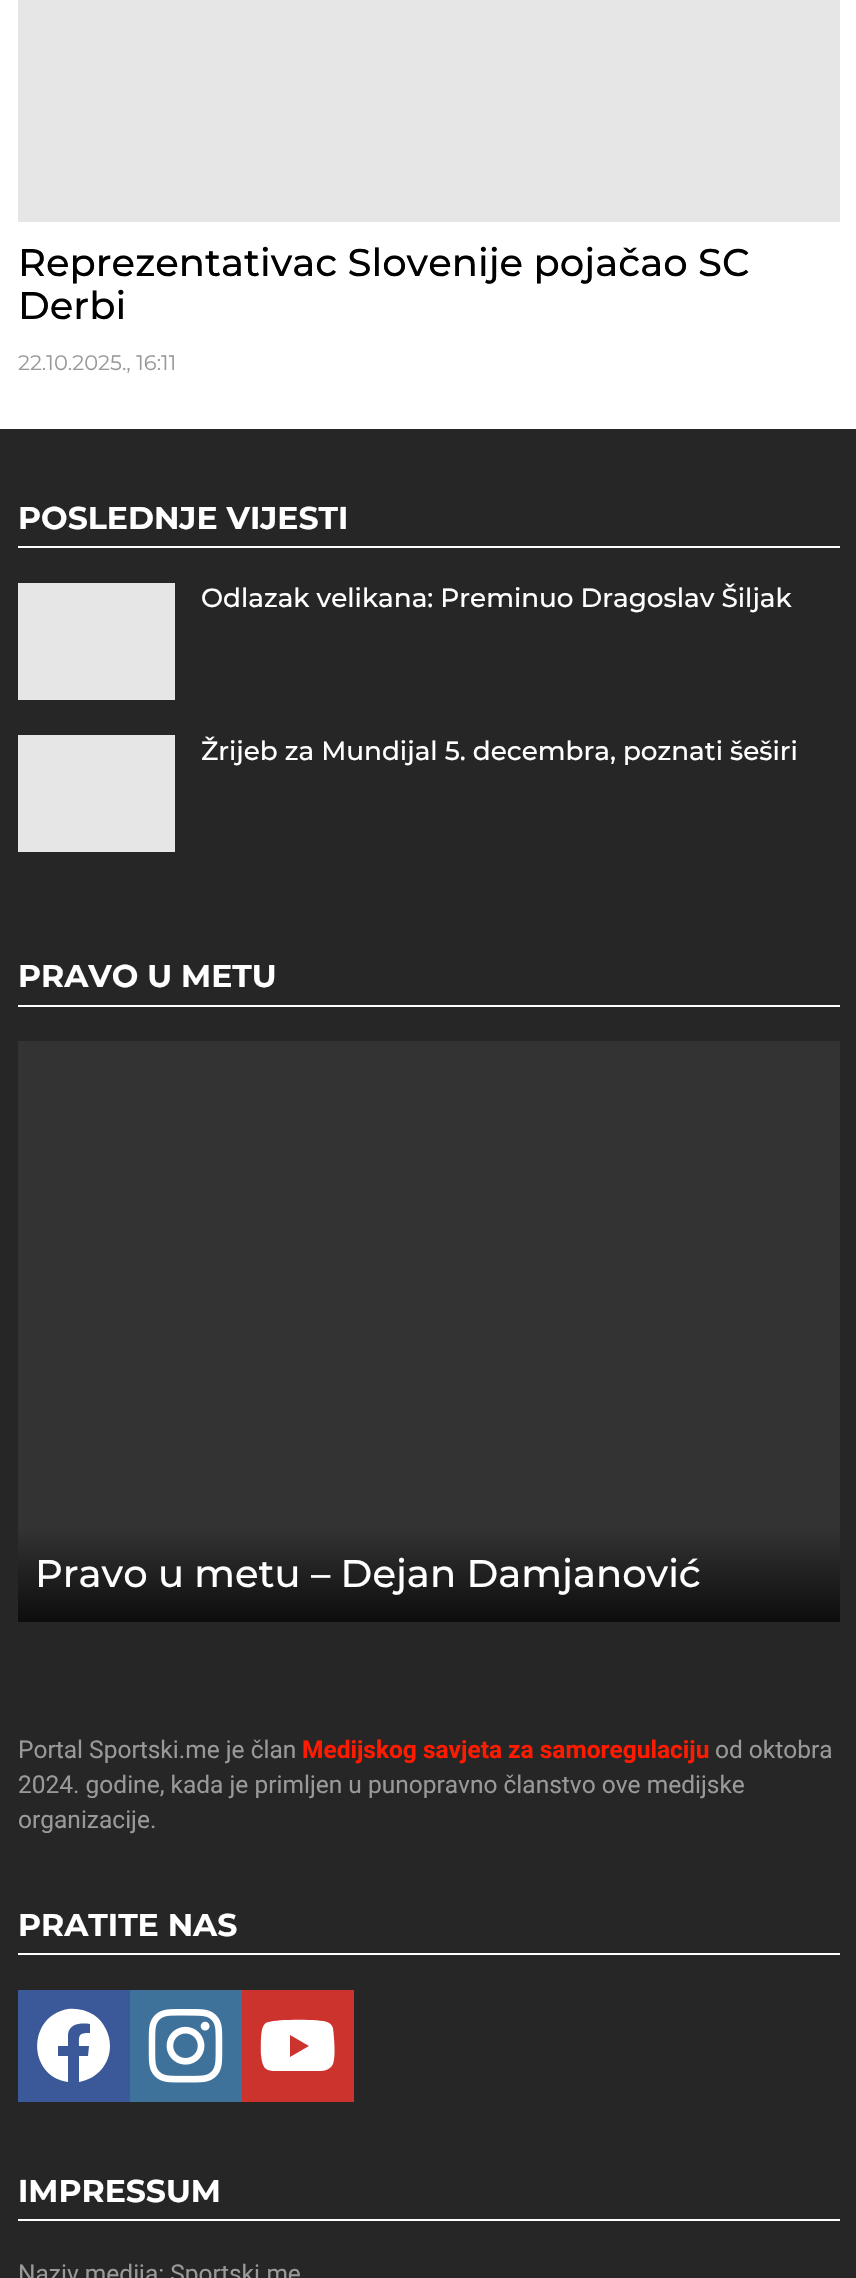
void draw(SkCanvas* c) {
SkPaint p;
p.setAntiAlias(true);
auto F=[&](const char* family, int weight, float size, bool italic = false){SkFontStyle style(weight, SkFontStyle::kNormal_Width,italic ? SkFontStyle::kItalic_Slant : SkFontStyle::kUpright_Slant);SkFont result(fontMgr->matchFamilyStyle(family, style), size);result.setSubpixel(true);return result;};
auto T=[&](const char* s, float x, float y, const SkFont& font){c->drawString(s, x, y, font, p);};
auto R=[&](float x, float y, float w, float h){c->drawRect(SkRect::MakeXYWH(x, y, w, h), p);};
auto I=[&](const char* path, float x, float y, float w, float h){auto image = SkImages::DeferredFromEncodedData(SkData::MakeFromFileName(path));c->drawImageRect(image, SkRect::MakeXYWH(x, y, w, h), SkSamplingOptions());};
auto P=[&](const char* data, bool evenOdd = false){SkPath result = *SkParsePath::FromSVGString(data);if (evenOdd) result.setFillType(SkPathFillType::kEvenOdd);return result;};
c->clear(0xffffffff);
p.setColor(0xffe6e6e6);
R(18,0,822,222);
auto f1 = F("Montserrat",500,38.5);
p.setColor(0xff000000);
T("Reprezentativac Slovenije pojačao SC",18,276,f1);
T("Derbi",18,319,f1);
auto f2 = F("Montserrat",400,21);
p.setColor(0xff999999);
T("22.10.2025., 16:11",18,370,f2);
p.setColor(0xff262626);
R(0,429,856,1849);
p.setColor(0xffffffff);
R(18,546,822,2);
auto f3 = F("Montserrat",700,31.5);
T("POSLEDNJE VIJESTI",18,529,f3);
p.setColor(0xffe6e6e6);
R(18,583,157,117);
auto f4 = F("Montserrat",500,26.25);
p.setColor(0xffffffff);
T("Odlazak velikana: Preminuo Dragoslav Šiljak",201,607,f4);
p.setColor(0xffe6e6e6);
R(18,735,157,117);
p.setColor(0xffffffff);
T("Žrijeb za Mundijal 5. decembra, poznati šeširi",201,760,f4);
R(18,1005,822,2);
T("PRAVO U METU",18,987,f3);
p.setColor(0xff333333);
R(18,1041,822,487);
{
const SkColor colors[] = {0xff333333,0xff0d0d0d};
const float stops[] = {0,1};
const SkPoint ends[] = {{429,1528}, {429,1622}};
p.setShader(SkGradientShader::MakeLinear(ends, colors, stops, 2, SkTileMode::kClamp));
p.setAlpha(255);
}
R(18,1528,822,94);
p.setShader(nullptr);
p.setColor(0xffffffff);
T("Pravo u metu – Dejan Damjanović",35,1587,f1);
auto f5 = F("Roboto",400,24.5);
p.setColor(0xff999999);
T("Portal Sportski.me je član",18,1758,f5);
auto f6 = F("Roboto",700,24.5);
p.setColor(0xffff1b00);
T("Medijskog savjeta za samoregulaciju",302,1758,f6);
p.setColor(0xff999999);
T("od oktobra",715,1758,f5);
T("2024. godine, kada je primljen u punopravno članstvo ove medijske",18,1793,f5);
T("organizacije.",18,1828,f5);
p.setColor(0xffffffff);
R(18,1953,822,2);
T("PRATITE NAS",18,1936,f3);
p.setColor(0xff3b5998);
R(18,1990,112,112);
p.setColor(0xffffffff);
c->drawPath(P("M110 2046c0-12-6-24-16-31c-8-5-17-7-26-6c-41 7-41 67 0 73v-26h-10v-10h10v-12c2-11 13-11 22-10v9c-12 0-11 2-11 13h10l-1 10h-9v26c18-3 31-18 31-36z"),p);
p.setColor(0xff3f729b);
R(130,1990,112,112);
I("1.png",148,2009,75,74);
p.setColor(0xffcd332d);
R(242,1990,112,112);
p.setColor(0xffffffff);
c->drawPath(P("M333 2028c-1-3-3-5-6-6c-6-3-50-3-58 0c-2 0-4 1-5 3c-4 5-3 23-3 30c2 18 7 16 24 16h31c6 0 14 0 17-7c3-8 1-27 0-36zm-43 29v-22l19 11z"),p);
R(18,2219,822,2);
T("IMPRESSUM",18,2202,f3);
p.setColor(0xff999999);
T("Naziv medija: Sportski.me",18,2282,f5);
}
